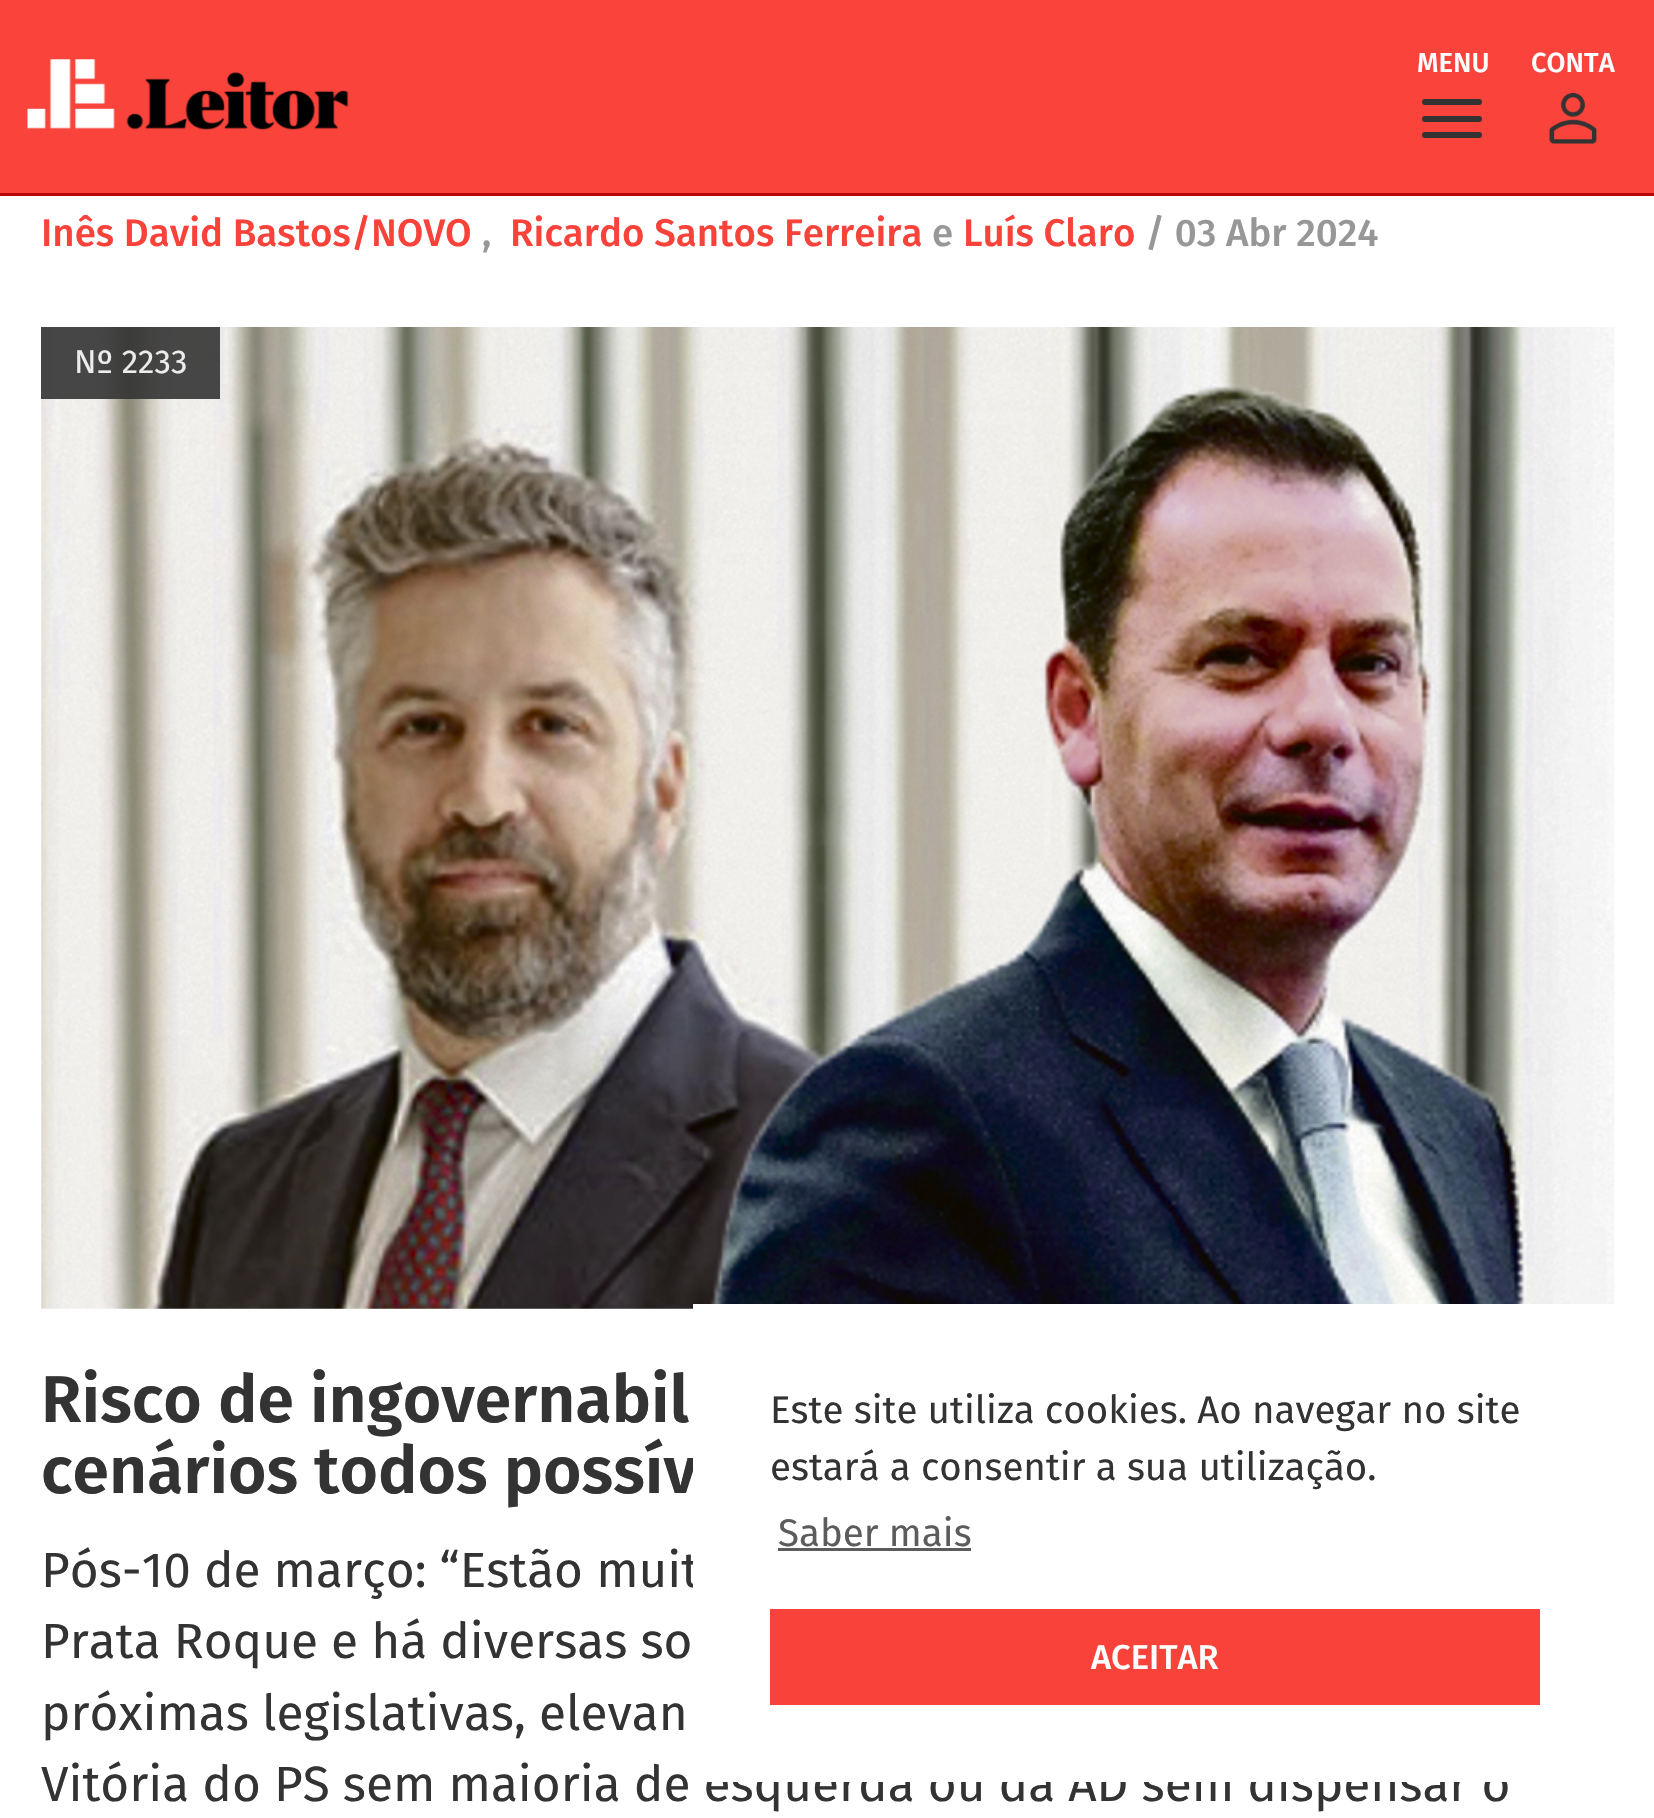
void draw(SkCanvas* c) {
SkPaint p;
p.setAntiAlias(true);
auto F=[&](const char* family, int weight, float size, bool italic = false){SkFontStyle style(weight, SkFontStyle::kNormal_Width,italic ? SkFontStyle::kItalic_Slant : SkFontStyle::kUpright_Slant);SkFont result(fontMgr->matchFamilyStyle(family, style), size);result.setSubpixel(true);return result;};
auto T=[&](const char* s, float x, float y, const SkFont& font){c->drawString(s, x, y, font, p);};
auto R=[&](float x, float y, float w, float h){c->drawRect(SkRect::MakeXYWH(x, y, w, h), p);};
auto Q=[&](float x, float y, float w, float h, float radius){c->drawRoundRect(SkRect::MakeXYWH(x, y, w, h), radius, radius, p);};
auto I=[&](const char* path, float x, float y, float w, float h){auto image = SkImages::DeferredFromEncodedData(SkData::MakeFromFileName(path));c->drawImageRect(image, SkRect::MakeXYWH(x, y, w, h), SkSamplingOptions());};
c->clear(0xffffffff);
p.setColor(0xfff9433b);
R(0,0,1654,193);
p.setColor(0xffb90603);
R(0,193,1654,3);
I("1.png",27,59,322,71);
auto f1 = F("Fira Sans",500,27.5);
p.setColor(0xffffffff);
T("MENU",1417,72,f1);
p.setColor(0xff333333);
Q(1422,99,60,6,3);
Q(1422,116,60,6,3);
Q(1422,132,60,6,3);
p.setColor(0xffffffff);
T("CONTA",1531,72,f1);
I("2.png",1549,92,48,52);
auto f2 = F("Fira Sans",500,38.5);
p.setColor(0xfff9423a);
T("Inês David Bastos/NOVO",41,246,f2);
p.setColor(0xff979797);
T(",",482,246,f2);
p.setColor(0xfff9423a);
T("Ricardo Santos Ferreira",510,246,f2);
p.setColor(0xff979797);
T("e",932,246,f2);
p.setColor(0xfff9423a);
T("Luís Claro",963,246,f2);
p.setColor(0xff979797);
T("/ 03 Abr 2024",1145,246,f2);
I("3.png",41,327,1574,982);
p.setColor(0xe6333333);
R(41,327,179,72);
auto f3 = F("Fira Sans",400,33);
p.setColor(0xffececec);
T("Nº 2233",74,373,f3);
auto f4 = F("Fira Sans",600,66);
p.setColor(0xff333333);
T("Risco de ingovernabil",41,1422,f4);
T("cenários todos possív",41,1493,f4);
auto f5 = F("Fira Sans",400,49.5);
T("Pós-10 de março: “Estão muit",41,1587,f5);
T("Prata Roque e há diversas so",41,1658,f5);
T("próximas legislativas, elevan",41,1730,f5);
T("Vitória do PS sem maioria de esquerda ou da AD sem dispensar o",41,1801,f5);
p.setColor(0xffffffff);
R(693,1304,922,478);
auto f6 = F("Fira Sans",400,38.5);
p.setColor(0xff333333);
T("Este site utiliza cookies. Ao navegar no site",770,1423,f6);
T("estará a consentir a sua utilização.",770,1480,f6);
p.setColor(0xff5c5c5c);
T("Saber mais",778,1546,f6);
R(778,1548,193,3);
p.setColor(0xfff9423a);
R(770,1609,770,96);
auto f7 = F("Fira Sans",500,34.5);
p.setColor(0xffffffff);
T("ACEITAR",1091,1669,f7);
}
